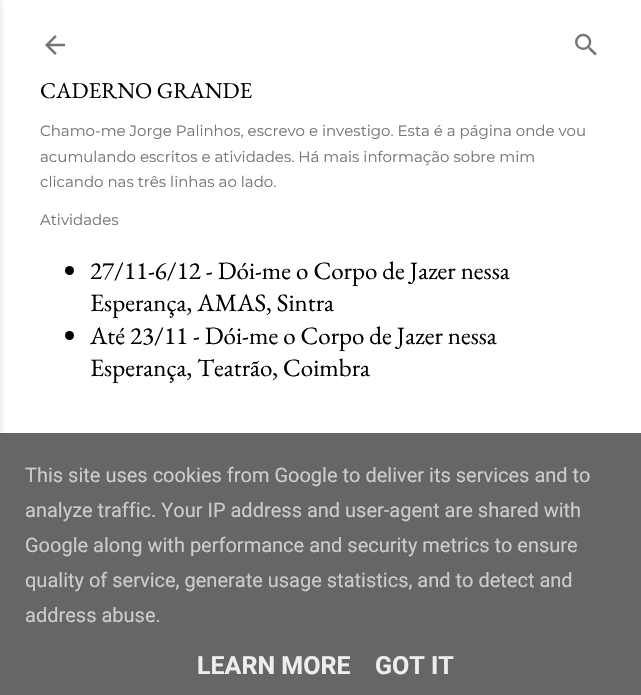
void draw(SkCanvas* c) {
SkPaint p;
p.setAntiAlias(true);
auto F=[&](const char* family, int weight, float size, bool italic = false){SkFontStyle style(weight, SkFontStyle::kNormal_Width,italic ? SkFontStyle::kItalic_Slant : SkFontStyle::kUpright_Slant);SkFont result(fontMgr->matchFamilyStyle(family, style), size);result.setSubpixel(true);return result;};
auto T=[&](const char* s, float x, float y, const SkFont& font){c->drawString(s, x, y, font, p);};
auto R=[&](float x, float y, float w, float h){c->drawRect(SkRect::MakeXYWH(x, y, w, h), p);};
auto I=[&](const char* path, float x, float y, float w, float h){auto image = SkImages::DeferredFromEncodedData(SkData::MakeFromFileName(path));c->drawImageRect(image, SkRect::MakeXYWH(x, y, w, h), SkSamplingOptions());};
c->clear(0xffffffff);
p.setColor(0x1a000000);
p.setMaskFilter(SkMaskFilter::MakeBlur(kNormal_SkBlurStyle, 2));
c->drawRect(SkRect::MakeXYWH(-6,0,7,695),p);
p.setMaskFilter(nullptr);
I("1.png",45,35,20,20);
I("2.png",575,33,22,23);
auto f1 = F("EB Garamond",400,22.5);
p.setColor(0xff000000);
T("CADERNO GRANDE",40,98,f1);
auto f2 = F("Montserrat",400,15);
p.setColor(0xff757575);
T("Chamo-me Jorge Palinhos, escrevo e investigo. Esta é a página onde vou",40,136,f2);
T("acumulando escritos e atividades. Há mais informação sobre mim",40,162,f2);
T("clicando nas três linhas ao lado.",40,187,f2);
T("Atividades",40,225,f2);
p.setColor(0xff000000);
c->drawCircle(69.5,270.5,4.5,p);
auto f3 = F("EB Garamond",400,25);
T("27/11-6/12 - Dói-me o Corpo de Jazer nessa",90,279,f3);
T("Esperança, AMAS, Sintra",90,311,f3);
c->drawCircle(69.5,335.5,4.5,p);
T("Até 23/11 - Dói-me o Corpo de Jazer nessa",90,344,f3);
T("Esperança, Teatrão, Coimbra",90,376,f3);
p.setColor(0xff666666);
R(0,433,641,262);
auto f4 = F("Roboto",400,20);
p.setColor(0xffcccccc);
T("This site uses cookies from Google to deliver its services and to",25,482,f4);
T("analyze traffic. Your IP address and user-agent are shared with",25,517,f4);
T("Google along with performance and security metrics to ensure",25,552,f4);
T("quality of service, generate usage statistics, and to detect and",25,587,f4);
T("address abuse.",25,622,f4);
auto f5 = F("Roboto",700,25);
p.setColor(0xffeeeeee);
T("LEARN MORE",197,674,f5);
T("GOT IT",375,674,f5);
}
